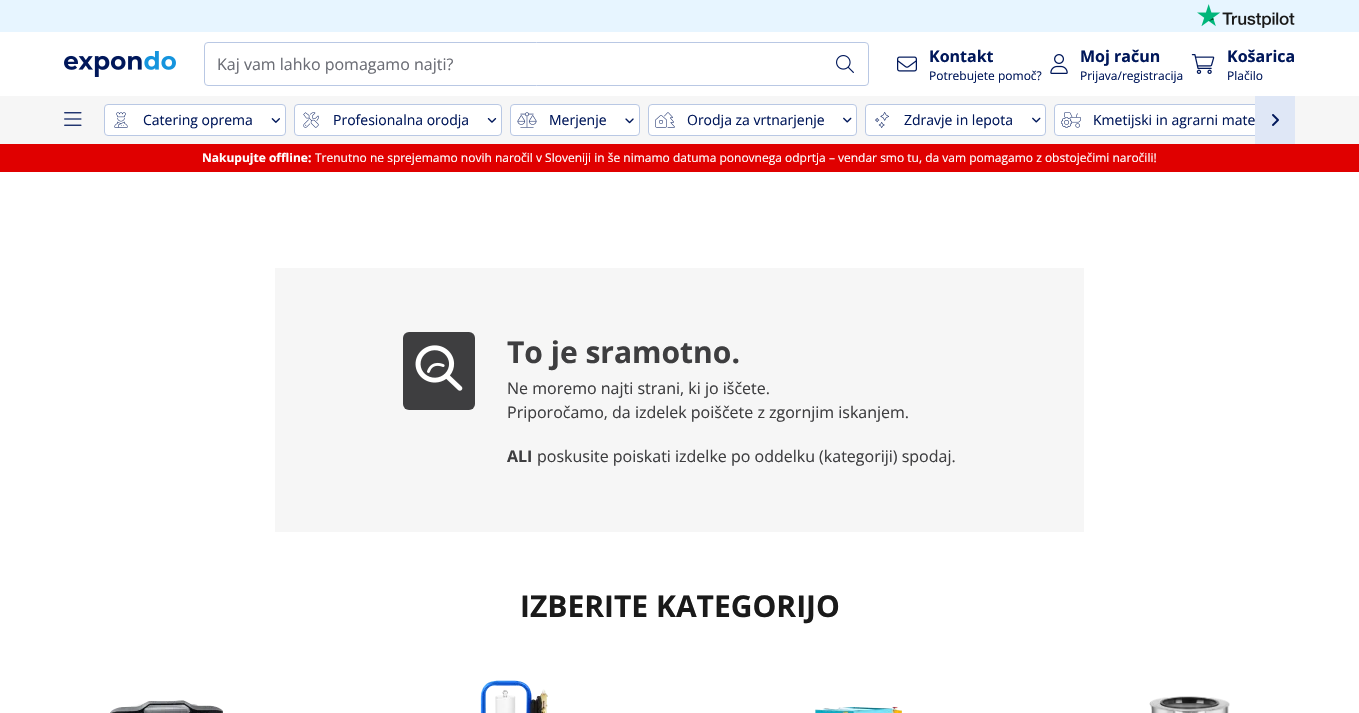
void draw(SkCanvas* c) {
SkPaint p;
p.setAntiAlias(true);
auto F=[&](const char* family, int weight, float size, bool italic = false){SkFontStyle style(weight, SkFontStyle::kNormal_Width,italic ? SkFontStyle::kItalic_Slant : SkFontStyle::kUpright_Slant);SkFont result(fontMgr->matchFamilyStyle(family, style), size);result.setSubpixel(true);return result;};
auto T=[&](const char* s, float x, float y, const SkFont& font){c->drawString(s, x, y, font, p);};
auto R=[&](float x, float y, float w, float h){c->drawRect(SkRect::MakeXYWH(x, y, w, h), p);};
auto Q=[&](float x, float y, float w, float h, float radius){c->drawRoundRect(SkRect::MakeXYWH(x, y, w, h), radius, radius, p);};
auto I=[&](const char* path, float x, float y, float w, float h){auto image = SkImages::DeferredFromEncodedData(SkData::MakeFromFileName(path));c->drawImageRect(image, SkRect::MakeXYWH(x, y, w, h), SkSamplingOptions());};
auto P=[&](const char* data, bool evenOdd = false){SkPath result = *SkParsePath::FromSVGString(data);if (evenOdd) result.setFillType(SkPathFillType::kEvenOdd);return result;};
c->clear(0xffffffff);
p.setColor(0xffe7f5ff);
R(0,0,1359,32);
I("1.png",1197,4,98,24);
I("2.png",64,51,112,26);
p.setStroke(true);
p.setStrokeWidth(1);
p.setColor(0xffb9c8e4);
c->drawRoundRect(SkRect::MakeXYWH(204.5,42.5,664,43),3.5,3.5,p);
auto f1 = F("Open Sans",400,16);
p.setStroke(false);
p.setColor(0xff6b6d75);
T("Kaj vam lahko pomagamo najti?",217,70,f1);
I("3.png",836,55,18,18);
I("4.png",897,56,20,16);
auto f2 = F("Open Sans",700,16);
p.setColor(0xff00175a);
T("Kontakt",929,62,f2);
auto f3 = F("Open Sans",400,12);
T("Potrebujete pomoč?",929,80,f3);
I("5.png",1050,54,18,20);
T("Moj račun",1080,62,f2);
T("Prijava/registracija",1080,80,f3);
I("6.png",1191,54,24,20);
T("Košarica",1227,62,f2);
T("Plačilo",1227,80,f3);
p.setColor(0xfff6f6f6);
R(0,96,1359,48);
I("7.png",64,112,18,14);
p.setColor(0xffffffff);
c->drawRoundRect(SkRect::MakeXYWH(104.5,104.5,181,31),3.5,3.5,p);
p.setStroke(true);
p.setColor(0xffb9c8e4);
c->drawRoundRect(SkRect::MakeXYWH(104.5,104.5,181,31),3.5,3.5,p);
I("8.png",114,112,14,16);
auto f4 = F("Open Sans",400,14);
p.setStroke(false);
p.setColor(0xff00175a);
T("Catering oprema",143,125,f4);
I("9.png",271,118,9,5);
p.setColor(0xffffffff);
c->drawRoundRect(SkRect::MakeXYWH(294.5,104.5,207,31),3.5,3.5,p);
p.setStroke(true);
p.setColor(0xffb9c8e4);
c->drawRoundRect(SkRect::MakeXYWH(294.5,104.5,207,31),3.5,3.5,p);
I("10.png",303,112,16,16);
p.setStroke(false);
p.setColor(0xff00175a);
T("Profesionalna orodja",333,125,f4);
I("11.png",487,118,10,5);
p.setColor(0xffffffff);
c->drawRoundRect(SkRect::MakeXYWH(510.5,104.5,129,31),3.5,3.5,p);
p.setStroke(true);
p.setColor(0xffb9c8e4);
c->drawRoundRect(SkRect::MakeXYWH(510.5,104.5,129,31),3.5,3.5,p);
I("12.png",517,112,20,16);
p.setStroke(false);
p.setColor(0xff00175a);
T("Merjenje",549,125,f4);
I("13.png",625,118,9,6);
p.setColor(0xffffffff);
c->drawRoundRect(SkRect::MakeXYWH(648.5,104.5,208,31),3.5,3.5,p);
p.setStroke(true);
p.setColor(0xffb9c8e4);
c->drawRoundRect(SkRect::MakeXYWH(648.5,104.5,208,31),3.5,3.5,p);
I("14.png",655,112,20,16);
p.setStroke(false);
p.setColor(0xff00175a);
T("Orodja za vrtnarjenje",687,125,f4);
I("15.png",843,117,9,6);
p.setColor(0xffffffff);
c->drawRoundRect(SkRect::MakeXYWH(865.5,104.5,180,31),3.5,3.5,p);
p.setStroke(true);
p.setColor(0xffb9c8e4);
c->drawRoundRect(SkRect::MakeXYWH(865.5,104.5,180,31),3.5,3.5,p);
I("16.png",875,112,14,16);
p.setStroke(false);
p.setColor(0xff00175a);
T("Zdravje in lepota",904,125,f4);
I("17.png",1032,117,9,6);
p.setColor(0xffffffff);
c->drawPath(P("M1058 104h237v32h-237c-2 0-4-2-4-4v-24c0-2 2-4 4-4z"),p);
c->save();
c->clipRect(SkRect::MakeXYWH(104,96,1191,48));
p.setStroke(true);
p.setColor(0xffb9c8e4);
c->drawRoundRect(SkRect::MakeXYWH(1054.5,104.5,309,31),3.5,3.5,p);
c->restore();
I("18.png",1061,112,20,16);
p.setStroke(false);
p.setColor(0xff00175a);
T("Kmetijski in agrarni mate",1093,125,f4);
p.setColor(0xffdfe7f6);
R(1255,96,40,48);
I("19.png",1272,114,7,12);
p.setColor(0xffe00000);
R(0,144,1359,28);
auto f5 = F("Open Sans",700,12);
p.setColor(0xffffffff);
T("Nakupujte offline:",202,162,f5);
T("Trenutno ne sprejemamo novih naročil v Sloveniji in še nimamo datuma ponovnega odprtja – vendar smo tu, da vam pomagamo z obstoječimi naročili!",315,162,f3);
p.setColor(0xfff6f6f6);
R(275,268,809,264);
p.setColor(0xff3e3e40);
Q(403,332,72,78,6);
I("20.png",415,345,48,46);
auto f6 = F("Open Sans",700,30);
T("To je sramotno.",507,363,f6);
T("Ne moremo najti strani, ki jo iščete.",507,394,f1);
T("Priporočamo, da izdelek poiščete z zgornjim iskanjem.",507,418,f1);
T("ALI",507,462,f2);
T("poskusite poiskati izdelke po oddelku (kategoriji) spodaj.",537,462,f1);
p.setColor(0xff1a1a1a);
T("IZBERITE KATEGORIJO",520,617,f6);
I("21.png",110,700,113,13);
I("22.png",480,680,68,33);
I("23.png",815,706,87,7);
I("24.png",1149,696,81,17);
}
